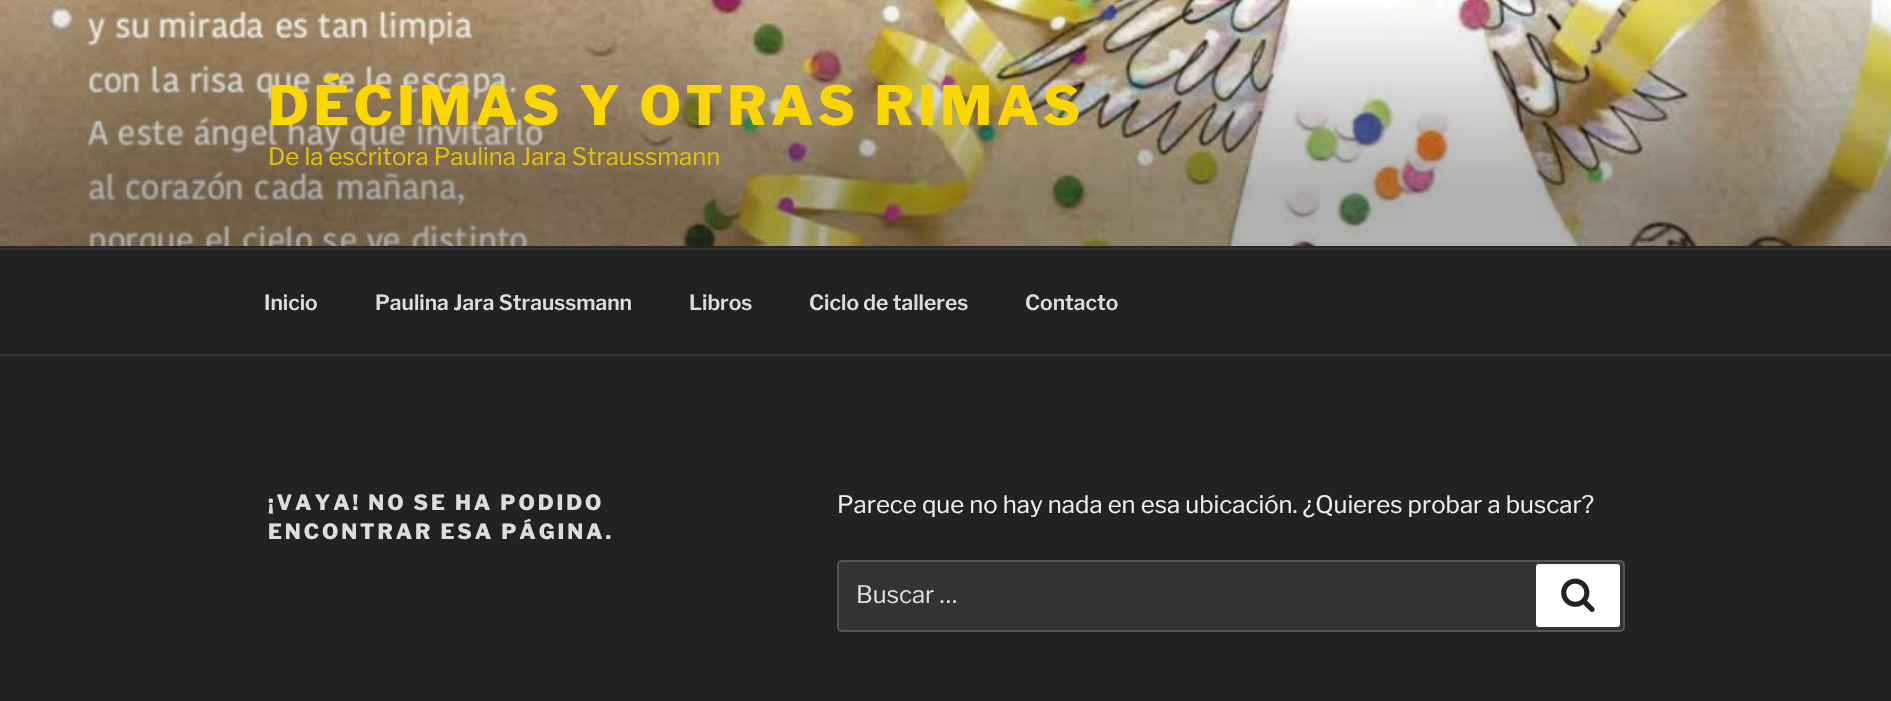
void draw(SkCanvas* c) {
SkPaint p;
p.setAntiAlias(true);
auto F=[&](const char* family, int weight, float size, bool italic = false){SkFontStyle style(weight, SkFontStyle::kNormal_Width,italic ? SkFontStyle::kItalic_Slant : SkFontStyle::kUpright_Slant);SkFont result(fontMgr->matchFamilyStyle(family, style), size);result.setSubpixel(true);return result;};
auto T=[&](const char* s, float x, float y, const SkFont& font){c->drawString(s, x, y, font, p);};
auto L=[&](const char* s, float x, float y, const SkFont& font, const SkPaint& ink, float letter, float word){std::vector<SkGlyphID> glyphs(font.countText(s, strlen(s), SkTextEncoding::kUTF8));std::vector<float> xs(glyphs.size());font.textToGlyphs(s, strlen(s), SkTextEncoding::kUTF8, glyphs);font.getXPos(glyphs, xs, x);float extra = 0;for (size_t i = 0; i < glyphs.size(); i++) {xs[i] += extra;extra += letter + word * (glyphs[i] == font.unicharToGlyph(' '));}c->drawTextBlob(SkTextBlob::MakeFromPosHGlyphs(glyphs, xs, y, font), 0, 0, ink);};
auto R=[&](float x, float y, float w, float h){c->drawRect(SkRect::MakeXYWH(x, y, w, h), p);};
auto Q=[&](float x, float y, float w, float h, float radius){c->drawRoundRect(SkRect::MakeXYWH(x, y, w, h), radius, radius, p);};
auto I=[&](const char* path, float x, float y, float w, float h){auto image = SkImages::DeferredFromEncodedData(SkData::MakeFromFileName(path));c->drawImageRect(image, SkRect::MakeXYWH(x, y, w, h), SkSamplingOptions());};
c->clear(0xff222222);
p.setColor(0xff262626);
R(0,246,1891,2);
I("1.png",0,0,1891,246);
auto f1 = F("Libre Franklin",100,54);
p.setColor(0xfffcd600);
L("DÉCIMAS Y OTRAS RIMAS",268,125,f1,p,4.3,0);
auto f2 = F("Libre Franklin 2",100,24);
p.setColor(0xffe3c110);
T("De la escritora Paulina Jara Straussmann",268,165,f2);
p.setColor(0xff333333);
R(0,248,1891,2);
R(0,354,1891,2);
auto f3 = F("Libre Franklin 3",100,21);
p.setColor(0xffdddddd);
T("Inicio",264,310,f3);
T("Paulina Jara Straussmann",375,310,f3);
T("Libros",689,310,f3);
T("Ciclo de talleres",809,310,f3);
T("Contacto",1025,310,f3);
auto f4 = F("Libre Franklin",100,21);
L("¡VAYA! NO SE HA PODIDO",268,510,f4,p,2.9,0);
L("ENCONTRAR ESA PÁGINA.",268,539,f4,p,2.9,0);
p.setColor(0xffeeeeee);
T("Parece que no hay nada en esa ubicación. ¿Quieres probar a buscar?",837,513,f2);
p.setColor(0xff333333);
c->drawRoundRect(SkRect::MakeXYWH(838,561,786,70),4,4,p);
p.setStroke(true);
p.setStrokeWidth(2);
p.setColor(0xff555555);
c->drawRoundRect(SkRect::MakeXYWH(838,561,786,70),4,4,p);
p.setStroke(false);
p.setColor(0xffdddddd);
T("Buscar …",856,603,f2);
p.setColor(0xffffffff);
Q(1536,564,84,63,3);
I("2.png",1561,578,34,34);
}
